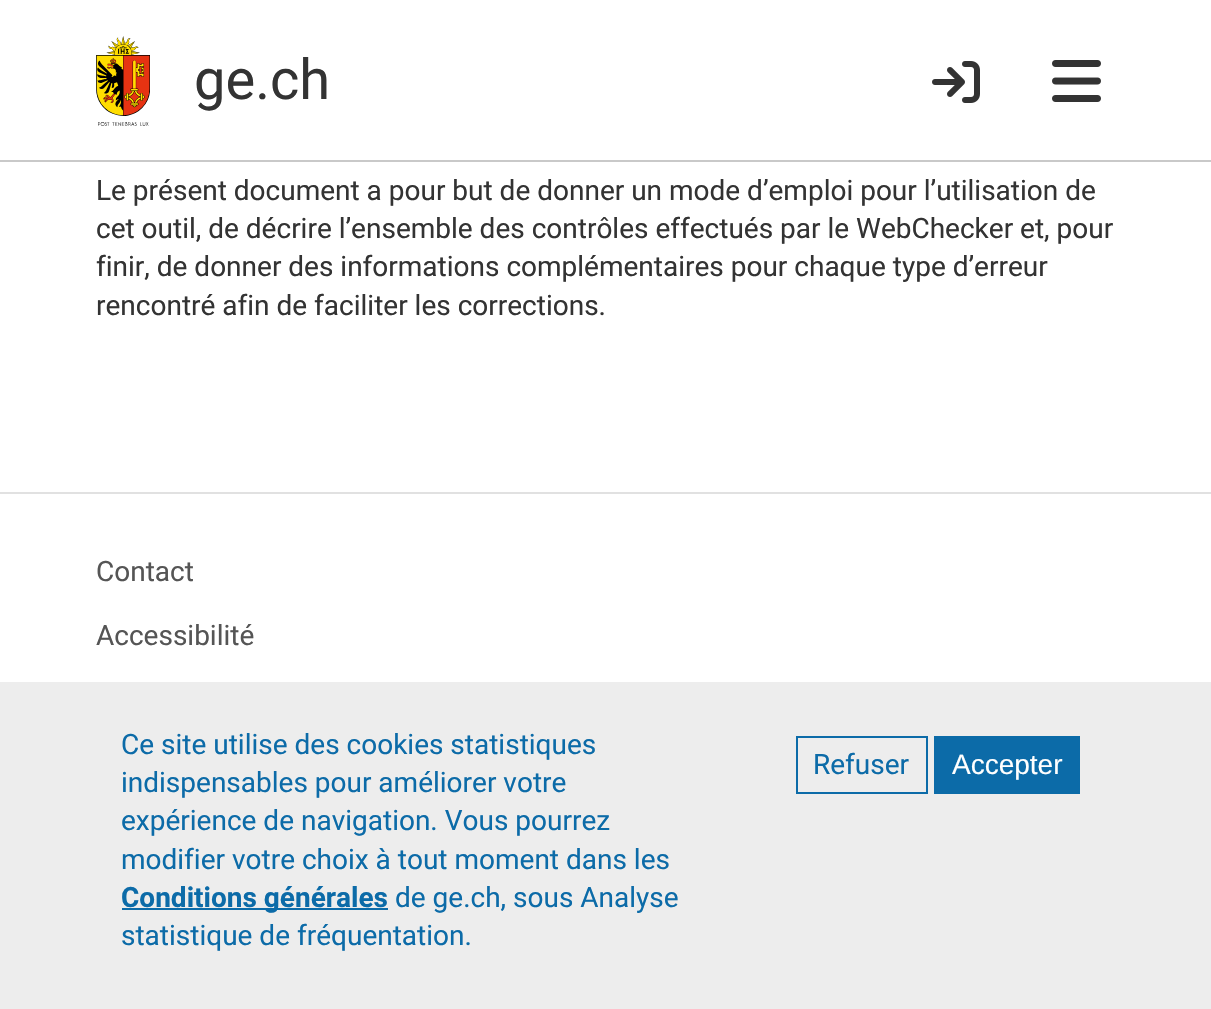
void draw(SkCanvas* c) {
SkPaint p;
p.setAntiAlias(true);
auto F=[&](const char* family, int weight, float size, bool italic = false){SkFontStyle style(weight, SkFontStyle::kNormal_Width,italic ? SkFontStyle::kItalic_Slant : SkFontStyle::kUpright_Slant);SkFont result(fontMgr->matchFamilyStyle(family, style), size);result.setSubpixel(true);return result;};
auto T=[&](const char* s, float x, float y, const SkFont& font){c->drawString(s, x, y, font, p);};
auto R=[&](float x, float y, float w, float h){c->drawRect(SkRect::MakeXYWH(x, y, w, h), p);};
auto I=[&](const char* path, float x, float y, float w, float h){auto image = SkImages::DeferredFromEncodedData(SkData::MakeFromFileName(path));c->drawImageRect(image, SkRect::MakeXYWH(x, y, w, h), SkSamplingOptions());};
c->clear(0xffffffff);
p.setColor(0xffc9c9c9);
R(0,160,1211,2);
I("1.png",96,36,54,90);
auto f1 = F("Roboto",400,56);
p.setColor(0xff333333);
T("ge.ch",194,99,f1);
I("2.png",932,61,48,42);
I("3.png",1052,60,49,42);
auto f2 = F("Roboto",400,28);
T("Le présent document a pour but de donner un mode d’emploi pour l’utilisation de",96,200,f2);
T("cet outil, de décrire l’ensemble des contrôles effectués par le WebChecker et, pour",96,238,f2);
T("finir, de donner des informations complémentaires pour chaque type d’erreur",96,276,f2);
T("rencontré afin de faciliter les corrections.",96,315,f2);
p.setColor(0xffe1e1e1);
R(0,492,1211,2);
p.setColor(0xff555555);
T("Contact",96,581,f2);
T("Accessibilité",96,645,f2);
p.setColor(0xffededed);
R(0,682,1211,327);
p.setColor(0xff0c6ba8);
T("Ce site utilise des cookies statistiques",121,754,f2);
T("indispensables pour améliorer votre",121,792,f2);
T("expérience de navigation. Vous pourrez",121,830,f2);
T("modifier votre choix à tout moment dans les",121,869,f2);
R(122,908,266,2);
auto f3 = F("Roboto",700,28);
T("Conditions générales",121,907,f3);
T("de ge.ch, sous Analyse",395,907,f2);
T("statistique de fréquentation.",121,945,f2);
p.setStroke(true);
p.setStrokeWidth(2);
c->drawRect(SkRect::MakeXYWH(797,737,130,56),p);
p.setStroke(false);
T("Refuser",813,774,f2);
R(934,736,146,58);
auto f4 = F("Liberation Sans",400,28);
p.setColor(0xffffffff);
T("Accepter",952,774,f4);
}
